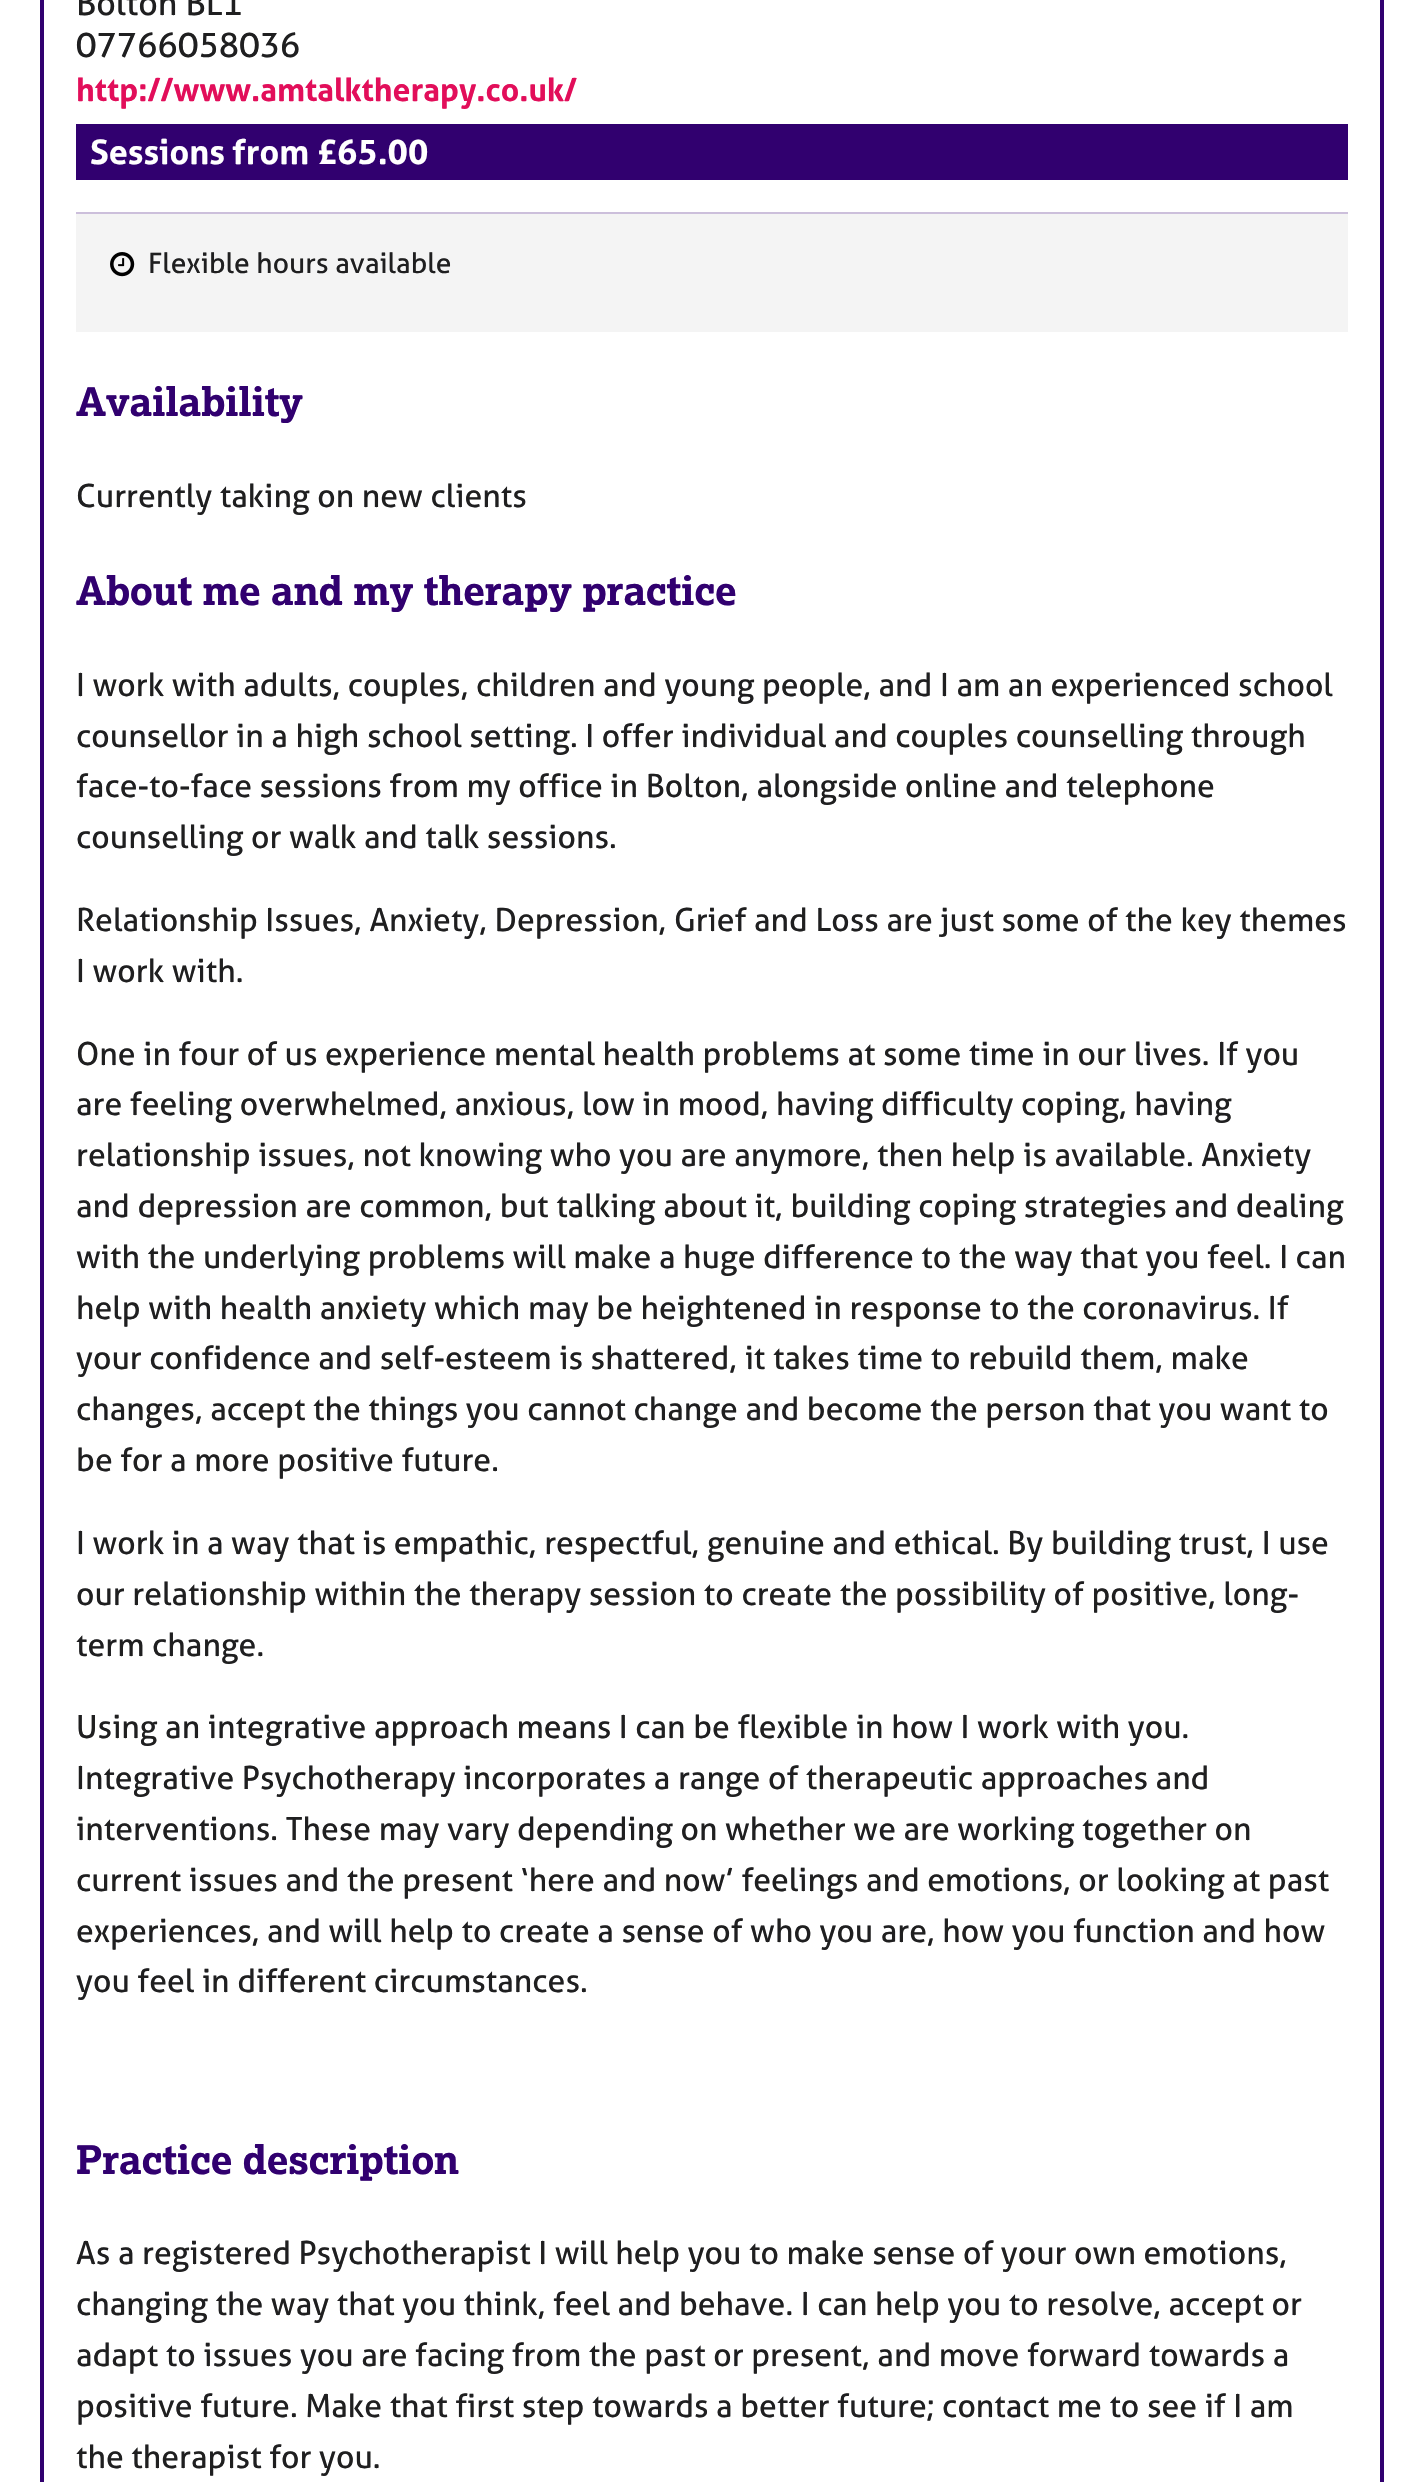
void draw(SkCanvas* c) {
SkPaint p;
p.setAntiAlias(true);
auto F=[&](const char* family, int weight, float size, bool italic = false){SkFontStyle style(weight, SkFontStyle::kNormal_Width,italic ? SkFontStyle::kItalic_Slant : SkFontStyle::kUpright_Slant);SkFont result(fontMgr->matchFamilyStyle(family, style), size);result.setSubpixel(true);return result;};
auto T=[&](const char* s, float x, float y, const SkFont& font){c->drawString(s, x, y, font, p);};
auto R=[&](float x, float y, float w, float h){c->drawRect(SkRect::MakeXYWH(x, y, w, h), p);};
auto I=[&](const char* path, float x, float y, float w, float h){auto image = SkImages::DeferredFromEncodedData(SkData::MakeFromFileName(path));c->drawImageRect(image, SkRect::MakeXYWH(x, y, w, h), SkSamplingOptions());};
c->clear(0xffffffff);
p.setStroke(true);
p.setStrokeWidth(4);
p.setColor(0xff31006f);
c->drawRect(SkRect::MakeXYWH(42,-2,1340,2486),p);
p.setStroke(false);
p.setColor(0xffccbfdb);
R(76,212,1272,2);
auto f1 = F("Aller",400,34);
p.setColor(0xff1f1f20);
T("Bolton BL1",76,15,f1);
T("07766058036",76,57,f1);
auto f2 = F("Aller",700,32);
p.setColor(0xffe20e5a);
T("http://www.amtalktherapy.co.uk/",76,101,f2);
p.setColor(0xff31006f);
R(76,124,1272,56);
auto f3 = F("Aller",700,34);
p.setColor(0xffffffff);
T("Sessions from £65.00",90,164,f3);
p.setColor(0xfff4f4f4);
R(76,214,1272,118);
I("1.png",110,252,25,25);
auto f4 = F("Aller",400,28.25);
p.setColor(0xff1f1f20);
T("Flexible hours available",148,273,f4);
auto f5 = F("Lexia",700,39.5);
p.setColor(0xff31006f);
T("Availability",76,416,f5);
auto f6 = F("Aller",400,32);
p.setColor(0xff1f1f20);
T("Currently taking on new clients",76,507,f6);
p.setColor(0xff31006f);
T("About me and my therapy practice",76,605,f5);
p.setColor(0xff1f1f20);
T("I work with adults, couples, children and young people, and I am an experienced school",76,696,f6);
T("counsellor in a high school setting. I offer individual and couples counselling through",76,747,f6);
T("face-to-face sessions from my office in Bolton, alongside online and telephone",76,797,f6);
T("counselling or walk and talk sessions.",76,848,f6);
T("Relationship Issues, Anxiety, Depression, Grief and Loss are just some of the key themes",76,931,f6);
T("I work with.",76,982,f6);
T("One in four of us experience mental health problems at some time in our lives. If you",76,1065,f6);
T("are feeling overwhelmed, anxious, low in mood, having difficulty coping, having",76,1115,f6);
T("relationship issues, not knowing who you are anymore, then help is available. Anxiety",76,1166,f6);
T("and depression are common, but talking about it, building coping strategies and dealing",76,1217,f6);
T("with the underlying problems will make a huge difference to the way that you feel. I can",76,1268,f6);
T("help with health anxiety which may be heightened in response to the coronavirus. If",76,1319,f6);
T("your confidence and self-esteem is shattered, it takes time to rebuild them, make",76,1369,f6);
T("changes, accept the things you cannot change and become the person that you want to",76,1420,f6);
T("be for a more positive future.",76,1471,f6);
T("I work in a way that is empathic, respectful, genuine and ethical. By building trust, I use",76,1554,f6);
T("our relationship within the therapy session to create the possibility of positive, long-",76,1605,f6);
T("term change.",76,1656,f6);
T("Using an integrative approach means I can be flexible in how I work with you.",76,1738,f6);
T("Integrative Psychotherapy incorporates a range of therapeutic approaches and",76,1789,f6);
T("interventions. These may vary depending on whether we are working together on",76,1840,f6);
T("current issues and the present ‘here and now’ feelings and emotions, or looking at past",76,1891,f6);
T("experiences, and will help to create a sense of who you are, how you function and how",76,1942,f6);
T("you feel in different circumstances.",76,1992,f6);
p.setColor(0xff31006f);
T("Practice description",76,2174,f5);
p.setColor(0xff1f1f20);
T("As a registered Psychotherapist I will help you to make sense of your own emotions,",76,2264,f6);
T("changing the way that you think, feel and behave. I can help you to resolve, accept or",76,2315,f6);
T("adapt to issues you are facing from the past or present, and move forward towards a",76,2366,f6);
T("positive future. Make that first step towards a better future; contact me to see if I am",76,2417,f6);
T("the therapist for you.",76,2468,f6);
}
